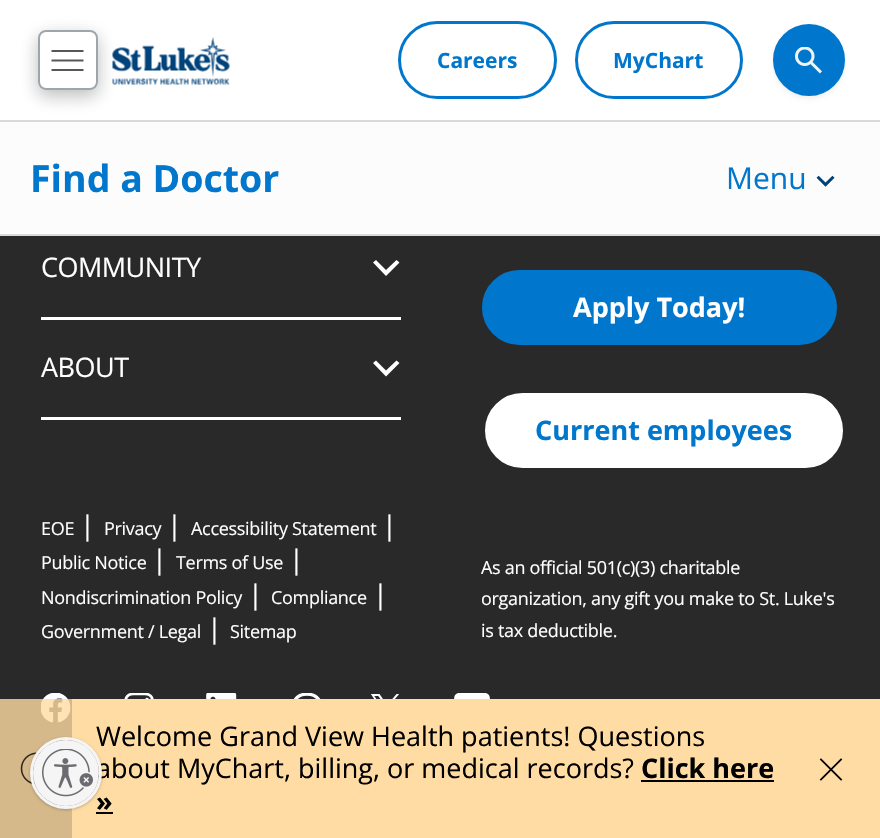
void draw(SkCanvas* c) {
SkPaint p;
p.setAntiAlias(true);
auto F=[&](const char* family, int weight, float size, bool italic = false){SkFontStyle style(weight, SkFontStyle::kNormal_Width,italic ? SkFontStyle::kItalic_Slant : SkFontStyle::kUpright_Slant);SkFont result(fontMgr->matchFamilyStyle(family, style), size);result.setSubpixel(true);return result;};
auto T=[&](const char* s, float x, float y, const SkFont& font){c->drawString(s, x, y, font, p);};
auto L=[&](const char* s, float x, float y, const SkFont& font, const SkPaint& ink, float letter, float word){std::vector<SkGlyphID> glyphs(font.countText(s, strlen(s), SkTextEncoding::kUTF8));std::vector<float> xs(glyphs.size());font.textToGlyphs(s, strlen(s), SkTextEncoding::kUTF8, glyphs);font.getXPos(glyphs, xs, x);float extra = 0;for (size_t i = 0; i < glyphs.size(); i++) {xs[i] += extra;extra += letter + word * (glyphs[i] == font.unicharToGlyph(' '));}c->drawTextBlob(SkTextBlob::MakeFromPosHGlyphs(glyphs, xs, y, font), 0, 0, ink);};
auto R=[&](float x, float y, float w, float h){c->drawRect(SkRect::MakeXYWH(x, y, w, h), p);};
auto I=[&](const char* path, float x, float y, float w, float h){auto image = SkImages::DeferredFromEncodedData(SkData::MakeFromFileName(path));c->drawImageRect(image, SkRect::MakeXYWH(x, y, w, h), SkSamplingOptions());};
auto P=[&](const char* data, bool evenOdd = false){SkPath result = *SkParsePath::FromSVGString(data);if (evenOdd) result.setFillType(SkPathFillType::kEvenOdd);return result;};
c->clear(0xff292929);
p.setColor(0xffffffff);
R(0,0,880,120);
p.setColor(0xffd9d9d9);
R(0,120,880,2);
I("1.png",112,37,118,48);
p.setColor(0xfffcfcfc);
R(0,122,880,112);
c->save();
c->clipPath(P("M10 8h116v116h-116zm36 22h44c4.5 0 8 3.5 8 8v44c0 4.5-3.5 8-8 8h-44c-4.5 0-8-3.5-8-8v-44c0-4.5 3.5-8 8-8z",true),true);
p.setColor(0x470b0d0e);
p.setMaskFilter(SkMaskFilter::MakeBlur(kNormal_SkBlurStyle, 9));
c->drawRoundRect(SkRect::MakeXYWH(38,36,60,60),8,8,p);
p.setMaskFilter(nullptr);
c->restore();
p.setStroke(true);
p.setStrokeWidth(2);
p.setColor(0xff9ca6af);
c->drawRoundRect(SkRect::MakeXYWH(39,31,58,58),7,7,p);
p.setStroke(false);
p.setColor(0xff575757);
c->drawPath(P("M51.5 71v-2h32v2zm0-9.5v-2h32v2zm0-9.5v-2h32v2z"),p);
p.setStroke(true);
p.setStrokeWidth(3);
p.setColor(0xff0077cd);
c->drawRoundRect(SkRect::MakeXYWH(399.5,22.5,156,75),37.5,37.5,p);
auto f1 = F("Open Sans",700,21);
p.setStroke(false);
T("Careers",437,68,f1);
p.setStroke(true);
c->drawRoundRect(SkRect::MakeXYWH(576.5,22.5,165,75),37.5,37.5,p);
p.setStroke(false);
T("MyChart",613,68,f1);
p.setColor(0x0f000000);
p.setMaskFilter(SkMaskFilter::MakeBlur(kNormal_SkBlurStyle, 2));
c->drawRoundRect(SkRect::MakeXYWH(773,27,72,72),36,36,p);
p.setMaskFilter(nullptr);
p.setColor(0xff0077cd);
c->drawCircle(809,60,34.5,p);
p.setStroke(true);
c->drawCircle(809,60,34.5,p);
I("2.png",795,47,27,27);
p.setStroke(false);
p.setColor(0xffd9d9d9);
R(0,234,880,2);
auto f2 = F("Open Sans",700,37.5);
p.setColor(0xff0077cd);
T("Find a Doctor",30,192,f2);
auto f3 = F("Open Sans",400,30);
T("Menu",726,189,f3);
I("3.png",816,175,19,12);
p.setColor(0xffffffff);
R(41,317,360,3);
auto f4 = F("Open Sans",400,27);
L("COMMUNITY",41,277,f4,p,-.5,0);
c->drawPath(P("M386 276l-13-13.5l3-2.5l10 10l10.5-10l3 2.5z"),p);
R(41,417,360,3);
L("ABOUT",41,377,f4,p,-.5,0);
c->drawPath(P("M386 376.5l-13-13.5l3-2.5l10 10l10.5-10l3 2.5z"),p);
auto f5 = F("Open Sans",400,18);
L("EOE",41,535,f5,p,-.3,0);
T("|",80,535,f4);
L("Privacy",104,535,f5,p,-.3,0);
T("|",167,535,f4);
L("Accessibility Statement",191,535,f5,p,-.3,0);
T("|",382,535,f4);
L("Public Notice",41,569,f5,p,-.3,0);
T("|",152,569,f4);
L("Terms of Use",176,569,f5,p,-.3,0);
T("|",289,569,f4);
L("Nondiscrimination Policy",41,604,f5,p,-.3,0);
T("|",248,604,f4);
L("Compliance",271,604,f5,p,-.3,0);
T("|",373,604,f4);
L("Government / Legal",41,638,f5,p,-.3,0);
T("|",207,638,f4);
L("Sitemap",230,638,f5,p,-.3,0);
I("4.png",41,693,30,30);
I("5.png",124,693,30,6);
I("6.png",206,693,31,6);
I("7.png",294,693,27,6);
I("8.png",371,694,28,5);
I("9.png",454,693,36,6);
p.setColor(0xff0077cd);
c->drawRoundRect(SkRect::MakeXYWH(483.5,271.5,352,72),36,36,p);
p.setStroke(true);
c->drawRoundRect(SkRect::MakeXYWH(483.5,271.5,352,72),36,36,p);
auto f6 = F("Open Sans",700,27);
p.setStroke(false);
p.setColor(0xffffffff);
T("Apply Today!",573,317,f6);
c->drawRoundRect(SkRect::MakeXYWH(486.5,394.5,355,72),36,36,p);
p.setStroke(true);
c->drawRoundRect(SkRect::MakeXYWH(486.5,394.5,355,72),36,36,p);
p.setStroke(false);
p.setColor(0xff0077cd);
T("Current employees",535,440,f6);
p.setColor(0xffffffff);
L("As an official 501(c)(3) charitable",481,574,f5,p,-.3,0);
L("organization, any gift you make to St. Luke's",481,605,f5,p,-.3,0);
L("is tax deductible.",481,637,f5,p,-.3,0);
p.setColor(0xccffdca3);
R(0,699,72,139);
I("11.png",20,752,21,33);
p.setColor(0xffffdca3);
R(72,699,808,139);
p.setColor(0xff000000);
R(96,812,17,2);
p.setColor(0x3d000000);
p.setMaskFilter(SkMaskFilter::MakeBlur(kNormal_SkBlurStyle, 1.5));
c->drawRoundRect(SkRect::MakeXYWH(30,738,72,72),36,36,p);
p.setMaskFilter(nullptr);
p.setColor(0xff000000);
T("Welcome Grand View Health patients! Questions",96,746,f4);
T("about MyChart, billing, or medical records?",96,778,f4);
T("»",96,811,f6);
p.setStroke(true);
p.setColor(0xfff5f5f5);
c->drawCircle(66,773,34.5,p);
c->save();
c->clipPath(P("M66 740c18 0 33 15 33 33c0 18-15 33-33 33c-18 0-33-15-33-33c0-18 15-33 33-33z"),true);
p.setStroke(false);
p.setColor(0x3d000000);
p.setMaskFilter(SkMaskFilter::MakeBlur(kNormal_SkBlurStyle, 1.5));
c->drawRoundRect(SkRect::MakeXYWH(33,741,66,66),33,33,p);
p.setMaskFilter(nullptr);
c->restore();
p.setColor(0xfff5f5f5);
c->drawCircle(66,773,33,p);
I("10.png",42,749,51,48);
p.setColor(0xff000000);
T("Click here",641,778,f6);
R(641,780,133,2);
I("12.png",819,758,24,23);
}
